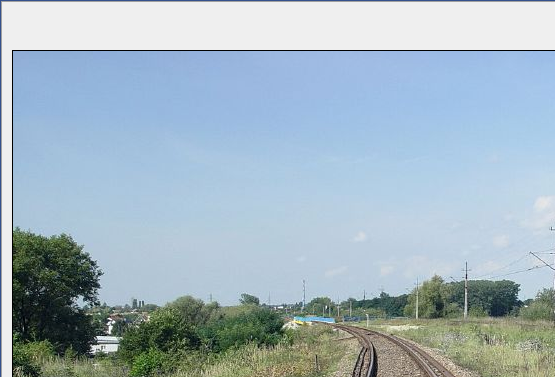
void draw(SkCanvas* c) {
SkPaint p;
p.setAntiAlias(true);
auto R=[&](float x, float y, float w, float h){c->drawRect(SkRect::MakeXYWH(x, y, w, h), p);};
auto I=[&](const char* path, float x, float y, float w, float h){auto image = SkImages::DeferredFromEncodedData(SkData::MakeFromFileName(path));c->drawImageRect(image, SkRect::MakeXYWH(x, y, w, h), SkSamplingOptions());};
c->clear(0xff34508c);
p.setColor(0xffa0a0a0);
R(1,1,554,376);
p.setColor(0xffefefef);
R(2,2,553,375);
p.setStroke(true);
p.setStrokeWidth(1);
p.setColor(0xff000000);
c->drawRect(SkRect::MakeXYWH(12.5,50.5,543,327),p);
I("1.png",13,51,542,326);
}
